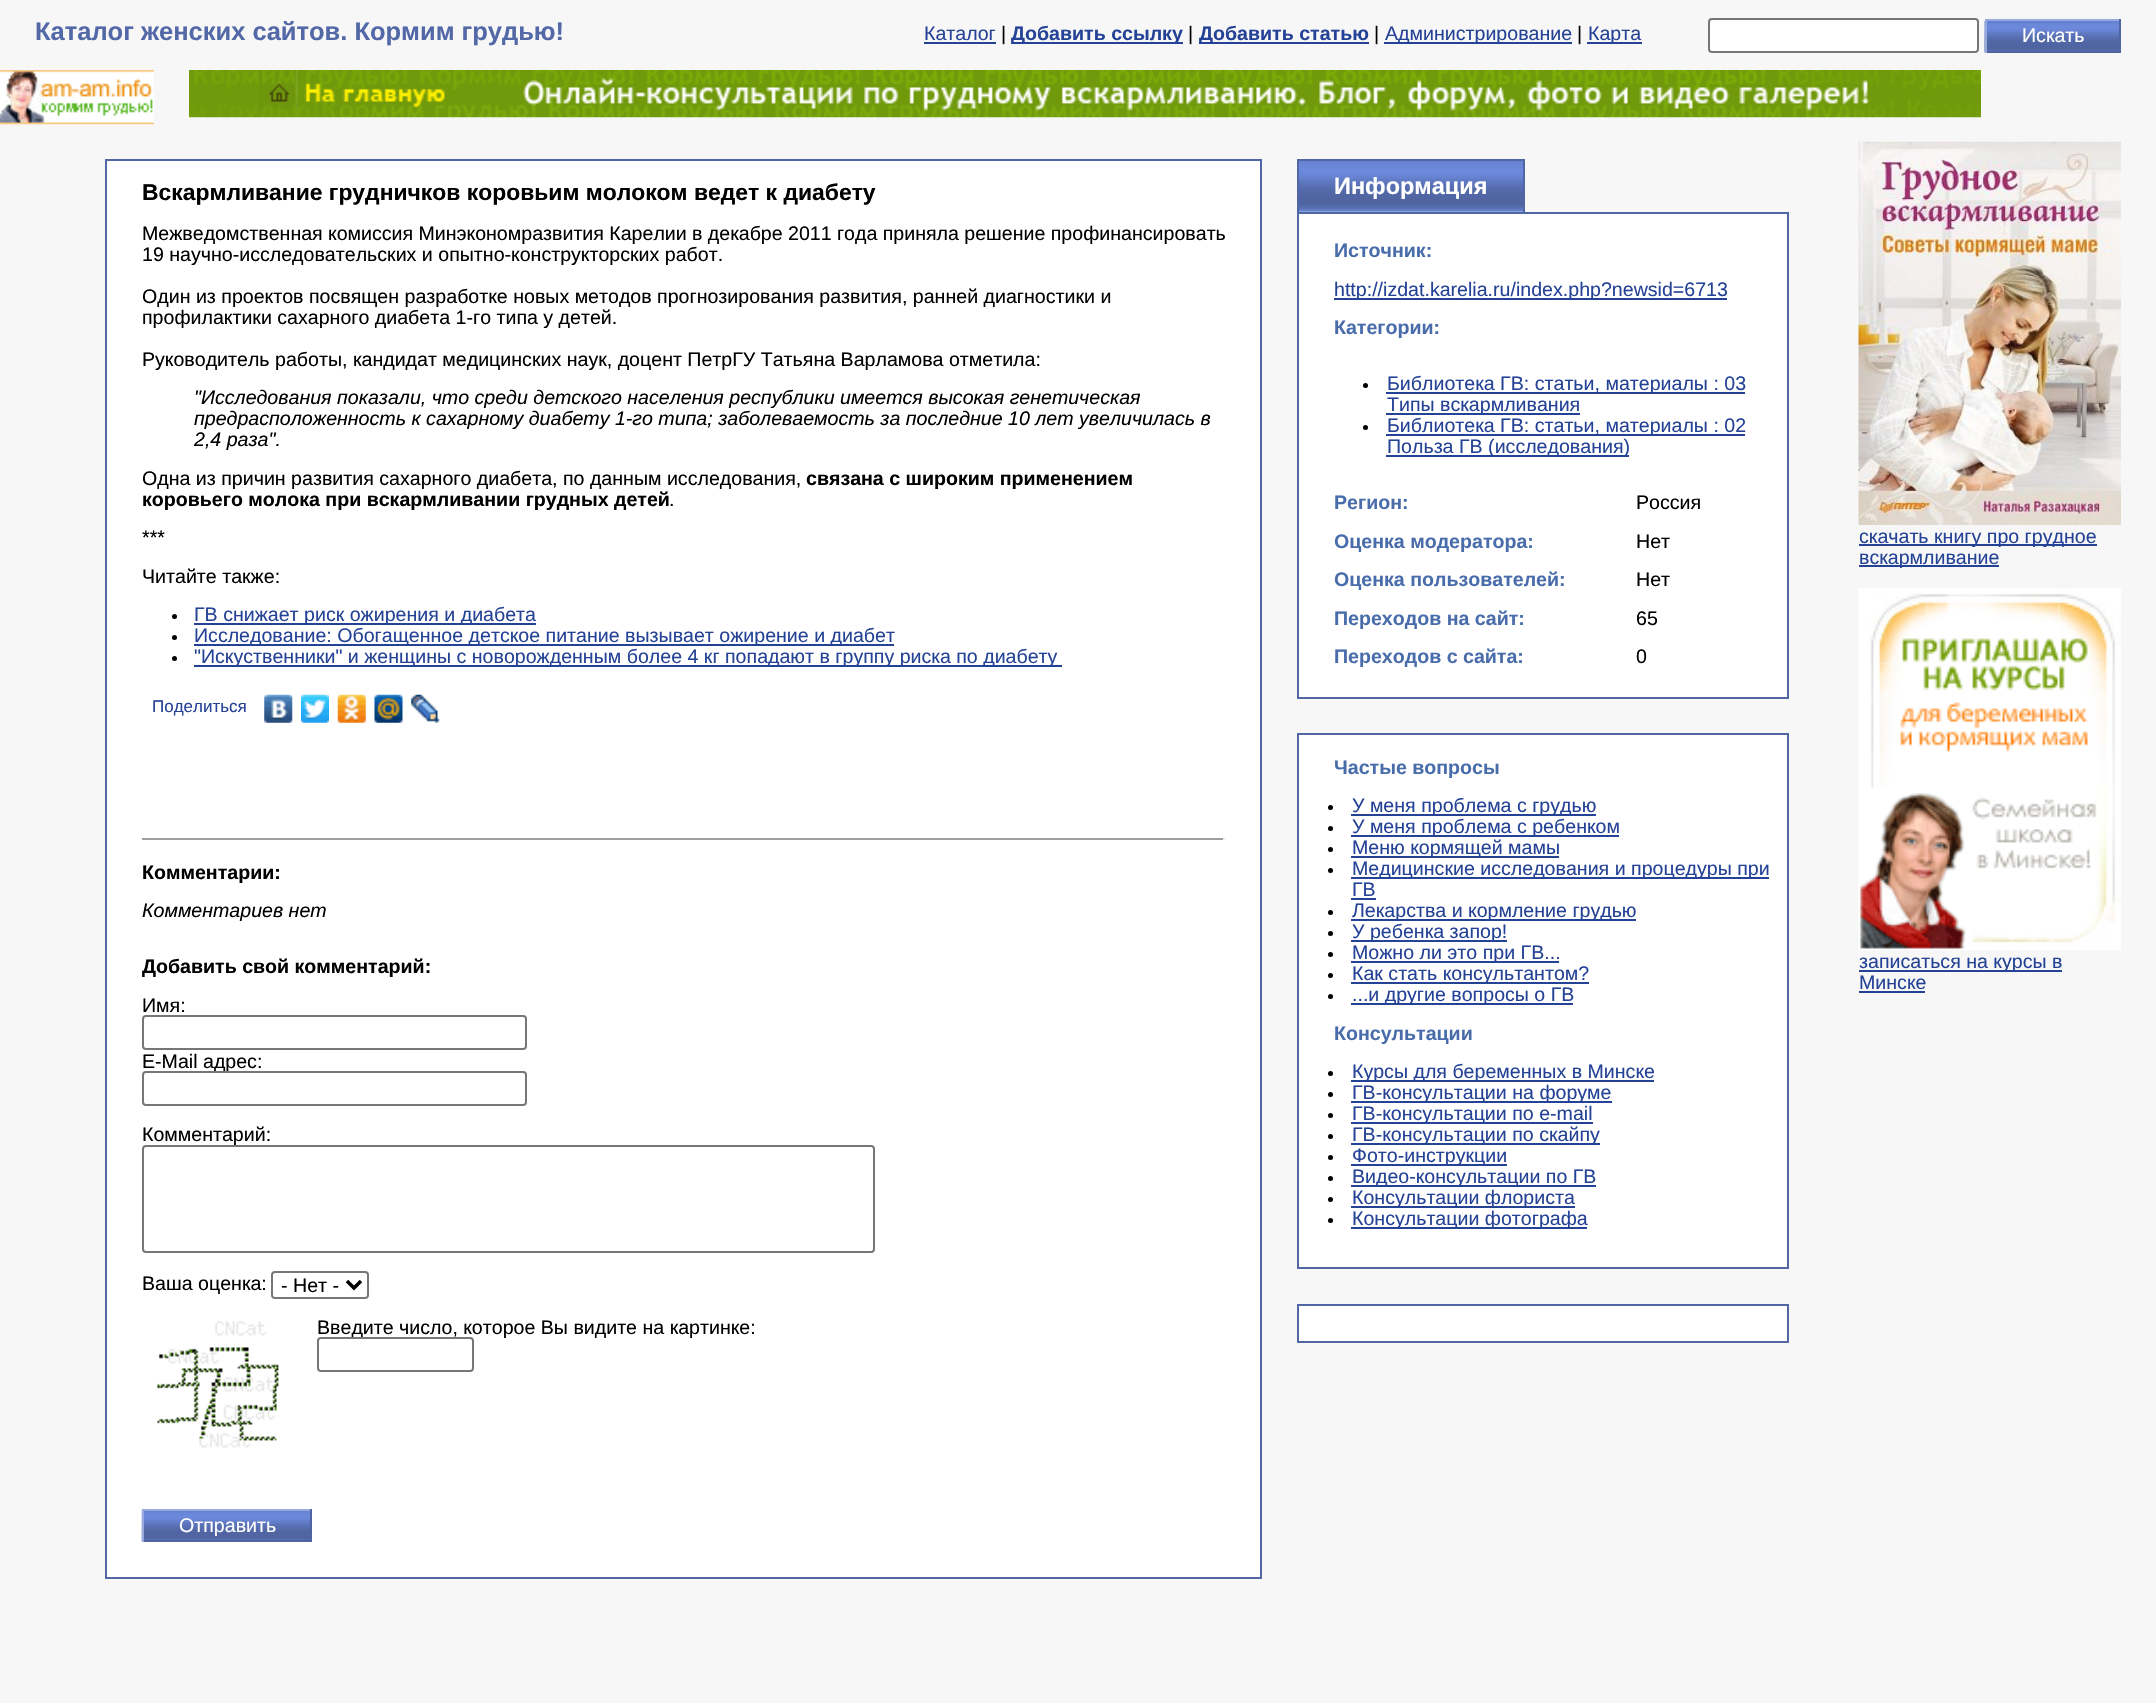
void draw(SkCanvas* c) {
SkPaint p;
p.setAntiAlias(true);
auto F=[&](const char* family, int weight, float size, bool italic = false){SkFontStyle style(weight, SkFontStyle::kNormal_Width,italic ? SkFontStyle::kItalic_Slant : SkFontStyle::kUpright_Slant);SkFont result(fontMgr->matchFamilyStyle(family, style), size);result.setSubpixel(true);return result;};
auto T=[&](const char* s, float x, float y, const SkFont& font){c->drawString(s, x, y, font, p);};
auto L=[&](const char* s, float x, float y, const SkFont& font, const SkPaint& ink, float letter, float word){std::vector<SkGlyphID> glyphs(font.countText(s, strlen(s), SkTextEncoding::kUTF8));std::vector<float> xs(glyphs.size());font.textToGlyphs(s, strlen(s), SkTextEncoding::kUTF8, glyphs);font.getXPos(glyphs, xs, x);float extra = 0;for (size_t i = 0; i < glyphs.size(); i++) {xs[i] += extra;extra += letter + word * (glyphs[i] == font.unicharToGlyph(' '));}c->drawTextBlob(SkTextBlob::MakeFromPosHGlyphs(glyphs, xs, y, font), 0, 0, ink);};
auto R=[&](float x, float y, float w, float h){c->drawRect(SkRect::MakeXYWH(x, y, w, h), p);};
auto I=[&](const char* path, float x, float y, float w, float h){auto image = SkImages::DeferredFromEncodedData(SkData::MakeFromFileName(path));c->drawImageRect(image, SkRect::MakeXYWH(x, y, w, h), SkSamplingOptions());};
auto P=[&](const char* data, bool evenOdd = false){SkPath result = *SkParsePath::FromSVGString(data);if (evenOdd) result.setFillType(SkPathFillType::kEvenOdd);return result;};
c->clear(0xfff7f7f7);
auto f1 = F("Liberation Sans",700,25.5);
p.setColor(0xff5268a7);
T("Каталог женских сайтов. Кормим грудью!",35,40,f1);
auto f2 = F("Liberation Sans",400,19.6);
p.setColor(0xff244296);
T("Каталог",924,40,f2);
R(924,42,72,2);
p.setColor(0xff000000);
T("|",1001,40,f2);
p.setColor(0xff244296);
R(1012,42,171,2);
auto f3 = F("Liberation Sans",700,19.6);
T("Добавить ссылку",1011,40,f3);
p.setColor(0xff000000);
T("|",1188,40,f2);
p.setColor(0xff244296);
R(1199,42,170,2);
T("Добавить статью",1199,40,f3);
p.setColor(0xff000000);
T("|",1374,40,f2);
p.setColor(0xff244296);
R(1384,42,188,2);
T("Администрирование",1385,40,f2);
p.setColor(0xff000000);
T("|",1577,40,f2);
p.setColor(0xff244296);
R(1587,42,55,2);
T("Карта",1588,40,f2);
p.setColor(0xffffffff);
c->drawRoundRect(SkRect::MakeXYWH(1709,19,269,33),3,3,p);
p.setStroke(true);
p.setStrokeWidth(2);
p.setColor(0xff767676);
c->drawRoundRect(SkRect::MakeXYWH(1709,19,269,33),3,3,p);
I("1.png",1984,21,135,32);
p.setStroke(false);
p.setColor(0xff97a9df);
R(1985,19,136,2);
p.setColor(0xff4f64a0);
R(2119,19,2,34);
R(1985,51,136,2);
p.setColor(0xff97a9df);
R(1985,19,2,34);
p.setColor(0xffffffff);
T("Искать",2022,42,f2);
I("2.png",0,70,154,55);
I("3.png",189,70,1792,48);
c->drawRect(SkRect::MakeXYWH(106,160,1155,1418),p);
p.setStroke(true);
p.setColor(0xff5167a5);
c->drawRect(SkRect::MakeXYWH(106,160,1155,1418),p);
auto f4 = F("Liberation Sans",700,22.9);
p.setStroke(false);
p.setColor(0xff000000);
T("Вскармливание грудничков коровьим молоком ведет к диабету",142,200,f4);
L("Межведомственная комиссия Минэкономразвития Карелии в декабре 2011 года приняла решение профинансировать",142,240,f2,p,0,-.1);
T("19 научно-исследовательских и опытно-конструкторских работ.",142,261,f2);
T("Один из проектов посвящен разработке новых методов прогнозирования развития, ранней диагностики и",142,303,f2);
T("профилактики сахарного диабета 1-го типа у детей.",142,324,f2);
T("Руководитель работы, кандидат медицинских наук, доцент ПетрГУ Татьяна Варламова отметила:",142,366,f2);
auto f5 = F("Liberation Sans",400,19.6,true);
T("\"Исследования показали, что среди детского населения республики имеется высокая генетическая",194,404,f5);
T("предрасположенность к сахарному диабету 1-го типа; заболеваемость за последние 10 лет увеличилась в",194,425,f5);
T("2,4 раза\".",194,446,f5);
T("Одна из причин развития сахарного диабета, по данным исследования,",142,485,f2);
T("связана с широким применением",806,485,f3);
T("коровьего молока при вскармливании грудных детей",142,506,f3);
T(".",669,506,f2);
T("***",142,544,f2);
T("Читайте также:",142,583,f2);
c->drawCircle(174.5,616.5,2.5,p);
p.setColor(0xff244296);
R(194,623,342,2);
T("ГВ снижает риск ожирения и диабета",194,621,f2);
p.setColor(0xff000000);
c->drawCircle(174.5,637.5,2.5,p);
p.setColor(0xff244296);
R(194,644,700,2);
T("Исследование: Обогащенное детское питание вызывает ожирение и диабет",194,642,f2);
p.setColor(0xff000000);
c->drawCircle(174.5,658.5,2.5,p);
p.setColor(0xff244296);
R(194,665,868,2);
T("\"Искуственники\" и женщины с новорожденным более 4 кг попадают в группу риска по диабету",194,663,f2);
auto f6 = F("Liberation Sans",400,17);
T("Поделиться",152,712,f6);
I("4.png",264,694,29,29);
I("5.png",301,694,28,29);
I("6.png",337,694,29,29);
I("7.png",374,694,29,29);
I("8.png",411,694,29,29);
p.setColor(0xff9f9f9f);
R(142,838,1083,2);
p.setColor(0xffeeeeee);
R(1223,838,2,2);
p.setColor(0xff000000);
T("Комментарии:",142,879,f3);
T("Комментариев нет",142,917,f5);
T("Добавить свой комментарий:",142,973,f3);
T("Имя:",142,1012,f2);
p.setStroke(true);
p.setColor(0xff767676);
c->drawRoundRect(SkRect::MakeXYWH(143,1016,383,33),3,3,p);
p.setStroke(false);
p.setColor(0xff000000);
T("E-Mail адрес:",142,1068,f2);
p.setColor(0xffffffff);
c->drawRoundRect(SkRect::MakeXYWH(143,1072,383,33),3,3,p);
p.setStroke(true);
p.setColor(0xff767676);
c->drawRoundRect(SkRect::MakeXYWH(143,1072,383,33),3,3,p);
p.setStroke(false);
p.setColor(0xff000000);
T("Комментарий:",142,1141,f2);
p.setColor(0xffffffff);
c->drawRoundRect(SkRect::MakeXYWH(143,1146,731,106),3,3,p);
p.setStroke(true);
p.setColor(0xff767676);
c->drawRoundRect(SkRect::MakeXYWH(143,1146,731,106),3,3,p);
p.setStroke(false);
p.setColor(0xff000000);
T("Ваша оценка:",142,1290,f2);
p.setStroke(true);
p.setColor(0xff767676);
c->drawRoundRect(SkRect::MakeXYWH(272,1272,96,26),3,3,p);
p.setStrokeWidth(3.5);
p.setColor(0xff000000);
c->drawPath(P("M347 1281l7 7l7-7"),p);
p.setStroke(false);
T("- Нет -",281,1292,f2);
I("9.png",157,1321,122,127);
T("Введите число, которое Вы видите на картинке:",317,1334,f2);
p.setColor(0xffffffff);
c->drawRoundRect(SkRect::MakeXYWH(318,1338,155,33),3,3,p);
p.setStroke(true);
p.setStrokeWidth(2);
p.setColor(0xff767676);
c->drawRoundRect(SkRect::MakeXYWH(318,1338,155,33),3,3,p);
I("10.png",141,1510,169,32);
p.setStroke(false);
p.setColor(0xff97a9df);
R(142,1509,170,2);
p.setColor(0xff4f64a0);
R(310,1509,2,33);
R(142,1540,170,2);
p.setColor(0xff97a9df);
R(142,1509,2,33);
p.setColor(0xffffffff);
T("Отправить",179,1532,f2);
I("11.png",1299,161,224,51);
p.setColor(0xff5167a5);
R(1297,159,227,2);
R(1523,159,2,55);
R(1297,159,2,55);
auto f7 = F("Liberation Sans",700,23.5);
p.setColor(0xffffffff);
T("Информация",1334,194,f7);
R(1299,214,488,483);
p.setColor(0xff5167a5);
R(1297,212,492,2);
R(1787,212,2,486);
R(1297,697,492,2);
R(1297,212,2,486);
p.setColor(0xff496dab);
T("Источник:",1334,257,f3);
p.setColor(0xff244296);
R(1334,298,393,2);
T("http://izdat.karelia.ru/index.php?newsid=6713",1334,296,f2);
p.setColor(0xff496dab);
T("Категории:",1334,334,f3);
p.setColor(0xff000000);
c->drawCircle(1365.5,385.5,2.5,p);
p.setColor(0xff244296);
R(1386,392,359,2);
T("Библиотека ГВ: статьи, материалы : 03",1387,390,f2);
R(1386,413,194,2);
T("Типы вскармливания",1387,411,f2);
p.setColor(0xff000000);
c->drawCircle(1365.5,427.5,2.5,p);
p.setColor(0xff244296);
R(1386,434,359,2);
T("Библиотека ГВ: статьи, материалы : 02",1387,432,f2);
R(1386,455,243,2);
T("Польза ГВ (исследования)",1387,453,f2);
p.setColor(0xff496dab);
T("Регион:",1334,509,f3);
p.setColor(0xff000000);
T("Россия",1636,509,f2);
p.setColor(0xff496dab);
T("Оценка модератора:",1334,548,f3);
p.setColor(0xff000000);
T("Нет",1636,548,f2);
p.setColor(0xff496dab);
T("Оценка пользователей:",1334,586,f3);
p.setColor(0xff000000);
T("Нет",1636,586,f2);
p.setColor(0xff496dab);
T("Переходов на сайт:",1334,625,f3);
p.setColor(0xff000000);
T("65",1636,625,f2);
p.setColor(0xff496dab);
T("Переходов с сайта:",1334,663,f3);
p.setColor(0xff000000);
T("0",1636,663,f2);
p.setColor(0xffffffff);
R(1299,735,488,532);
p.setColor(0xff5167a5);
R(1297,733,492,2);
R(1787,733,2,536);
R(1297,1267,492,2);
R(1297,733,2,536);
p.setColor(0xff496dab);
T("Частые вопросы",1334,774,f3);
p.setColor(0xff000000);
c->drawCircle(1330.5,807.5,2.5,p);
p.setColor(0xff244296);
R(1351,814,245,2);
T("У меня проблема с грудью",1352,812,f2);
p.setColor(0xff000000);
c->drawCircle(1330.5,828.5,2.5,p);
p.setColor(0xff244296);
R(1351,835,268,2);
T("У меня проблема с ребенком",1352,833,f2);
p.setColor(0xff000000);
c->drawCircle(1330.5,849.5,2.5,p);
p.setColor(0xff244296);
R(1351,856,208,2);
T("Меню кормящей мамы",1352,854,f2);
p.setColor(0xff000000);
c->drawCircle(1330.5,870.5,2.5,p);
p.setColor(0xff244296);
R(1351,877,418,2);
T("Медицинские исследования и процедуры при",1352,875,f2);
T("ГВ",1352,896,f2);
R(1351,898,25,2);
p.setColor(0xff000000);
c->drawCircle(1330.5,912.5,2.5,p);
p.setColor(0xff244296);
R(1351,919,285,2);
T("Лекарства и кормление грудью",1352,917,f2);
p.setColor(0xff000000);
c->drawCircle(1330.5,933.5,2.5,p);
p.setColor(0xff244296);
R(1351,940,156,2);
T("У ребенка запор!",1352,938,f2);
p.setColor(0xff000000);
c->drawCircle(1330.5,954.5,2.5,p);
p.setColor(0xff244296);
R(1351,961,208,2);
T("Можно ли это при ГВ...",1352,959,f2);
p.setColor(0xff000000);
c->drawCircle(1330.5,975.5,2.5,p);
p.setColor(0xff244296);
R(1351,982,238,2);
T("Как стать консультантом?",1352,980,f2);
p.setColor(0xff000000);
c->drawCircle(1330.5,996.5,2.5,p);
p.setColor(0xff244296);
R(1351,1003,222,2);
T("...и другие вопросы о ГВ",1352,1001,f2);
p.setColor(0xff496dab);
T("Консультации",1334,1040,f3);
p.setColor(0xff000000);
c->drawCircle(1330.5,1073.5,2.5,p);
p.setColor(0xff244296);
R(1351,1080,303,2);
T("Курсы для беременных в Минске",1352,1078,f2);
p.setColor(0xff000000);
c->drawCircle(1330.5,1094.5,2.5,p);
p.setColor(0xff244296);
R(1351,1101,261,2);
T("ГВ-консультации на форуме",1352,1099,f2);
p.setColor(0xff000000);
c->drawCircle(1330.5,1115.5,2.5,p);
p.setColor(0xff244296);
R(1351,1122,242,2);
T("ГВ-консультации по e-mail",1352,1120,f2);
p.setColor(0xff000000);
c->drawCircle(1330.5,1136.5,2.5,p);
p.setColor(0xff244296);
R(1351,1143,249,2);
T("ГВ-консультации по скайпу",1352,1141,f2);
p.setColor(0xff000000);
c->drawCircle(1330.5,1157.5,2.5,p);
p.setColor(0xff244296);
R(1351,1164,156,2);
T("Фото-инструкции",1352,1162,f2);
p.setColor(0xff000000);
c->drawCircle(1330.5,1178.5,2.5,p);
p.setColor(0xff244296);
R(1351,1185,245,2);
T("Видео-консультации по ГВ",1352,1183,f2);
p.setColor(0xff000000);
c->drawCircle(1330.5,1199.5,2.5,p);
p.setColor(0xff244296);
R(1351,1206,224,2);
T("Консультации флориста",1352,1204,f2);
p.setColor(0xff000000);
c->drawCircle(1330.5,1220.5,2.5,p);
p.setColor(0xff244296);
R(1351,1227,236,2);
T("Консультации фотографа",1352,1225,f2);
p.setColor(0xffffffff);
R(1299,1306,488,35);
p.setColor(0xff5167a5);
R(1297,1304,492,2);
R(1787,1304,2,38);
R(1297,1341,492,2);
R(1297,1304,2,38);
I("12.png",1858,141,263,384);
p.setColor(0xff244296);
R(1859,544,238,2);
T("скачать книгу про грудное",1859,543,f2);
R(1859,565,140,2);
T("вскармливание",1859,564,f2);
I("13.png",1858,588,263,362);
R(1859,970,203,2);
T("записаться на курсы в",1859,968,f2);
T("Минске",1859,989,f2);
R(1859,991,66,2);
}
